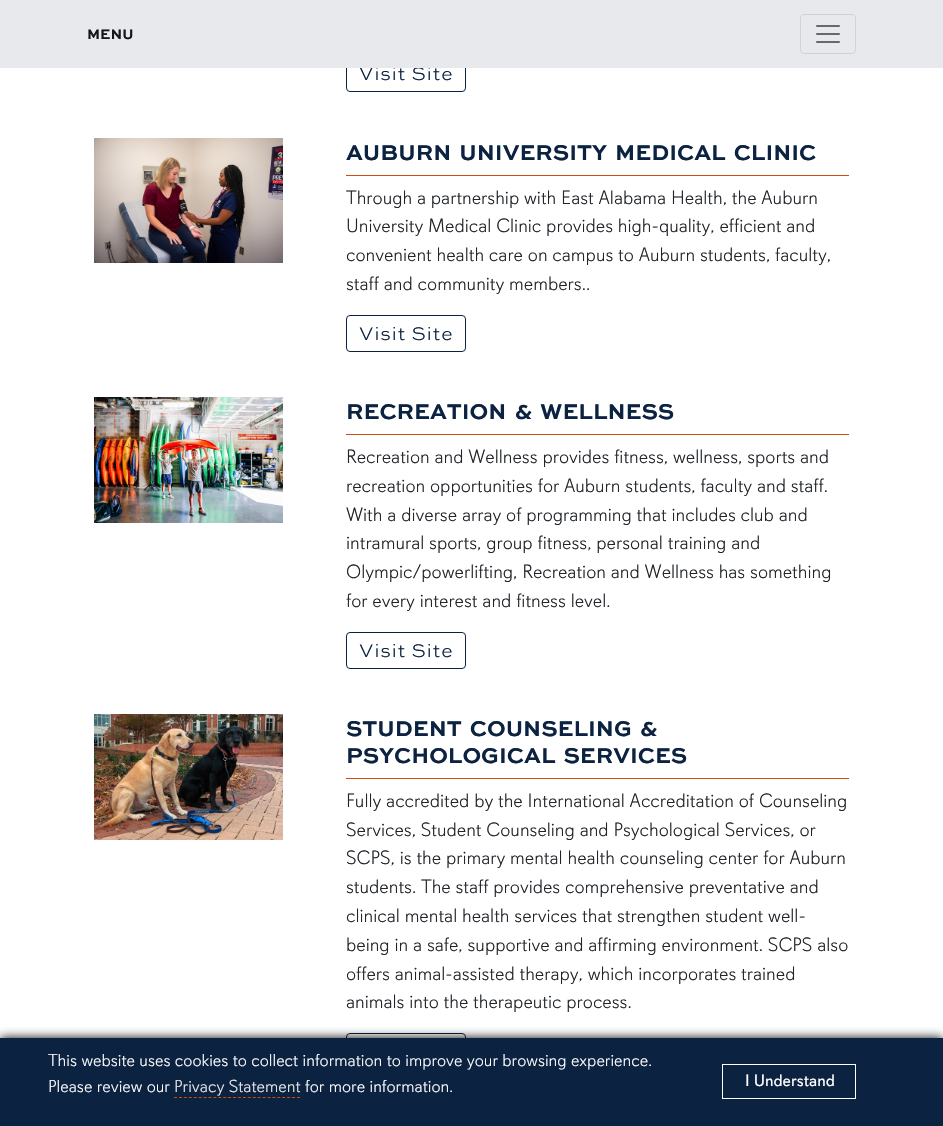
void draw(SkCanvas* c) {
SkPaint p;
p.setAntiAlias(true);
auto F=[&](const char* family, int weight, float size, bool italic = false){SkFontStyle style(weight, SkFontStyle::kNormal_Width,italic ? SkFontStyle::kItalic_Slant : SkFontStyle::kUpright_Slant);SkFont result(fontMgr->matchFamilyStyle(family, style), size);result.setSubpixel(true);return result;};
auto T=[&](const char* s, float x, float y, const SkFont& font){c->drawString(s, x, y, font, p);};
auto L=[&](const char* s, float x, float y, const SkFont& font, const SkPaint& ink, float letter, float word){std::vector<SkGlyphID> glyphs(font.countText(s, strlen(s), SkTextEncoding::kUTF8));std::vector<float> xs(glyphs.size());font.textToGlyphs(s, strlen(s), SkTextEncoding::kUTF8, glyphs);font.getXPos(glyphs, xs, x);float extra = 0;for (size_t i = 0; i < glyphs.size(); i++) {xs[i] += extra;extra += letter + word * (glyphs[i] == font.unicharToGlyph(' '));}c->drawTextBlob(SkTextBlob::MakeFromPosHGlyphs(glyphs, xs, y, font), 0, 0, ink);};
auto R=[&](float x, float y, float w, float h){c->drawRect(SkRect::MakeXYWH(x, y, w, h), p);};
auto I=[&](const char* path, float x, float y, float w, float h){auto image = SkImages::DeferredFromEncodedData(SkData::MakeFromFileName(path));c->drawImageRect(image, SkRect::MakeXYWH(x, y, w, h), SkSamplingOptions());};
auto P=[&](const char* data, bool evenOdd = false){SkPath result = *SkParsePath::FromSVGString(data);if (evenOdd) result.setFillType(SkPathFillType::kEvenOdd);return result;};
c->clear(0xffffffff);
p.setStroke(true);
p.setStrokeWidth(1);
p.setColor(0xff0b2341);
c->drawRoundRect(SkRect::MakeXYWH(346.5,55.5,119,36),3.5,3.5,p);
auto f1 = F("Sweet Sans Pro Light",300,19.2);
p.setStroke(false);
L("Visit Site",359,80,f1,p,1,0);
p.setColor(0xffe7e9ec);
R(0,0,943,68);
auto f2 = F("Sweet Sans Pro",700,14.5);
p.setColor(0xff171718);
T("MENU",87,39,f2);
p.setStroke(true);
p.setColor(0xffd0d2d4);
c->drawRoundRect(SkRect::MakeXYWH(800.5,14.5,55,39),3.5,3.5,p);
I("1.png",816,25,24,18);
I("2.png",94,138,189,125);
p.setStroke(false);
p.setColor(0xffcc4e0b);
R(346,175,503,1);
auto f3 = F("Sweet Sans Pro",700,22.4);
p.setColor(0xff0b2341);
L("AUBURN UNIVERSITY MEDICAL CLINIC",346,160,f3,p,0,3);
auto f4 = F("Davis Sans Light",300,19.2);
p.setColor(0xff212529);
T("Through a partnership with East Alabama Health, the Auburn",346,204,f4);
T("University Medical Clinic provides high-quality, efficient and",346,232,f4);
T("convenient health care on campus to Auburn students, faculty,",346,261,f4);
T("staff and community members..",346,290,f4);
p.setStroke(true);
p.setColor(0xff0b2341);
c->drawRoundRect(SkRect::MakeXYWH(346.5,315.5,119,36),3.5,3.5,p);
p.setStroke(false);
L("Visit Site",359,340,f1,p,1,0);
I("3.png",94,397,189,126);
p.setColor(0xffcc4e0b);
R(346,434,503,1);
p.setColor(0xff0b2341);
L("RECREATION & WELLNESS",346,419,f3,p,0,3);
p.setColor(0xff212529);
T("Recreation and Wellness provides fitness, wellness, sports and",346,463,f4);
T("recreation opportunities for Auburn students, faculty and staff.",346,492,f4);
T("With a diverse array of programming that includes club and",346,521,f4);
T("intramural sports, group fitness, personal training and",346,549,f4);
T("Olympic/powerlifting, Recreation and Wellness has something",346,578,f4);
T("for every interest and fitness level.",346,607,f4);
p.setStroke(true);
p.setColor(0xff0b2341);
c->drawRoundRect(SkRect::MakeXYWH(346.5,632.5,119,36),3.5,3.5,p);
p.setStroke(false);
L("Visit Site",359,657,f1,p,1,0);
I("4.png",94,714,189,126);
p.setColor(0xffcc4e0b);
R(346,778,503,1);
p.setColor(0xff0b2341);
L("STUDENT COUNSELING &",346,736,f3,p,0,3);
L("PSYCHOLOGICAL SERVICES",346,763,f3,p,0,3);
p.setColor(0xff212529);
T("Fully accredited by the International Accreditation of Counseling",346,807,f4);
T("Services, Student Counseling and Psychological Services, or",346,836,f4);
T("SCPS, is the primary mental health counseling center for Auburn",346,864,f4);
T("students. The staff provides comprehensive preventative and",346,893,f4);
T("clinical mental health services that strengthen student well-",346,922,f4);
T("being in a safe, supportive and affirming environment. SCPS also",346,951,f4);
T("offers animal-assisted therapy, which incorporates trained",346,980,f4);
T("animals into the therapeutic process.",346,1008,f4);
p.setStroke(true);
p.setColor(0xff0b2341);
c->drawRoundRect(SkRect::MakeXYWH(346.5,1033.5,119,36),3.5,3.5,p);
p.setStroke(false);
p.setColor(0xff000000);
p.setMaskFilter(SkMaskFilter::MakeBlur(kNormal_SkBlurStyle, 5));
c->drawRect(SkRect::MakeXYWH(0,1038,943,88),p);
p.setMaskFilter(nullptr);
p.setColor(0xff0b2341);
R(0,1038,943,88);
auto f5 = F("Davis Sans Light",300,17.3);
p.setColor(0xffffffff);
T("This website uses cookies to collect information to improve your browsing experience.",48,1066,f5);
T("Please review our",48,1092,f5);
p.setColor(0xffeaeaea);
T("Privacy Statement",174,1092,f5);
p.setStroke(true);
p.setColor(0xffcc4e0b);
p.setPathEffect(SkDashPathEffect::Make({{3,1.92f}}, 0));
c->drawPath(P("M174 1097.5h126"),p);
p.setPathEffect(nullptr);
p.setStroke(false);
p.setColor(0xffffffff);
T("for more information.",305,1092,f5);
p.setStroke(true);
c->drawRect(SkRect::MakeXYWH(722.5,1064.5,133,34),p);
auto f6 = F("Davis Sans",400,16.5);
p.setStroke(false);
T("I Understand",745,1086,f6);
}
